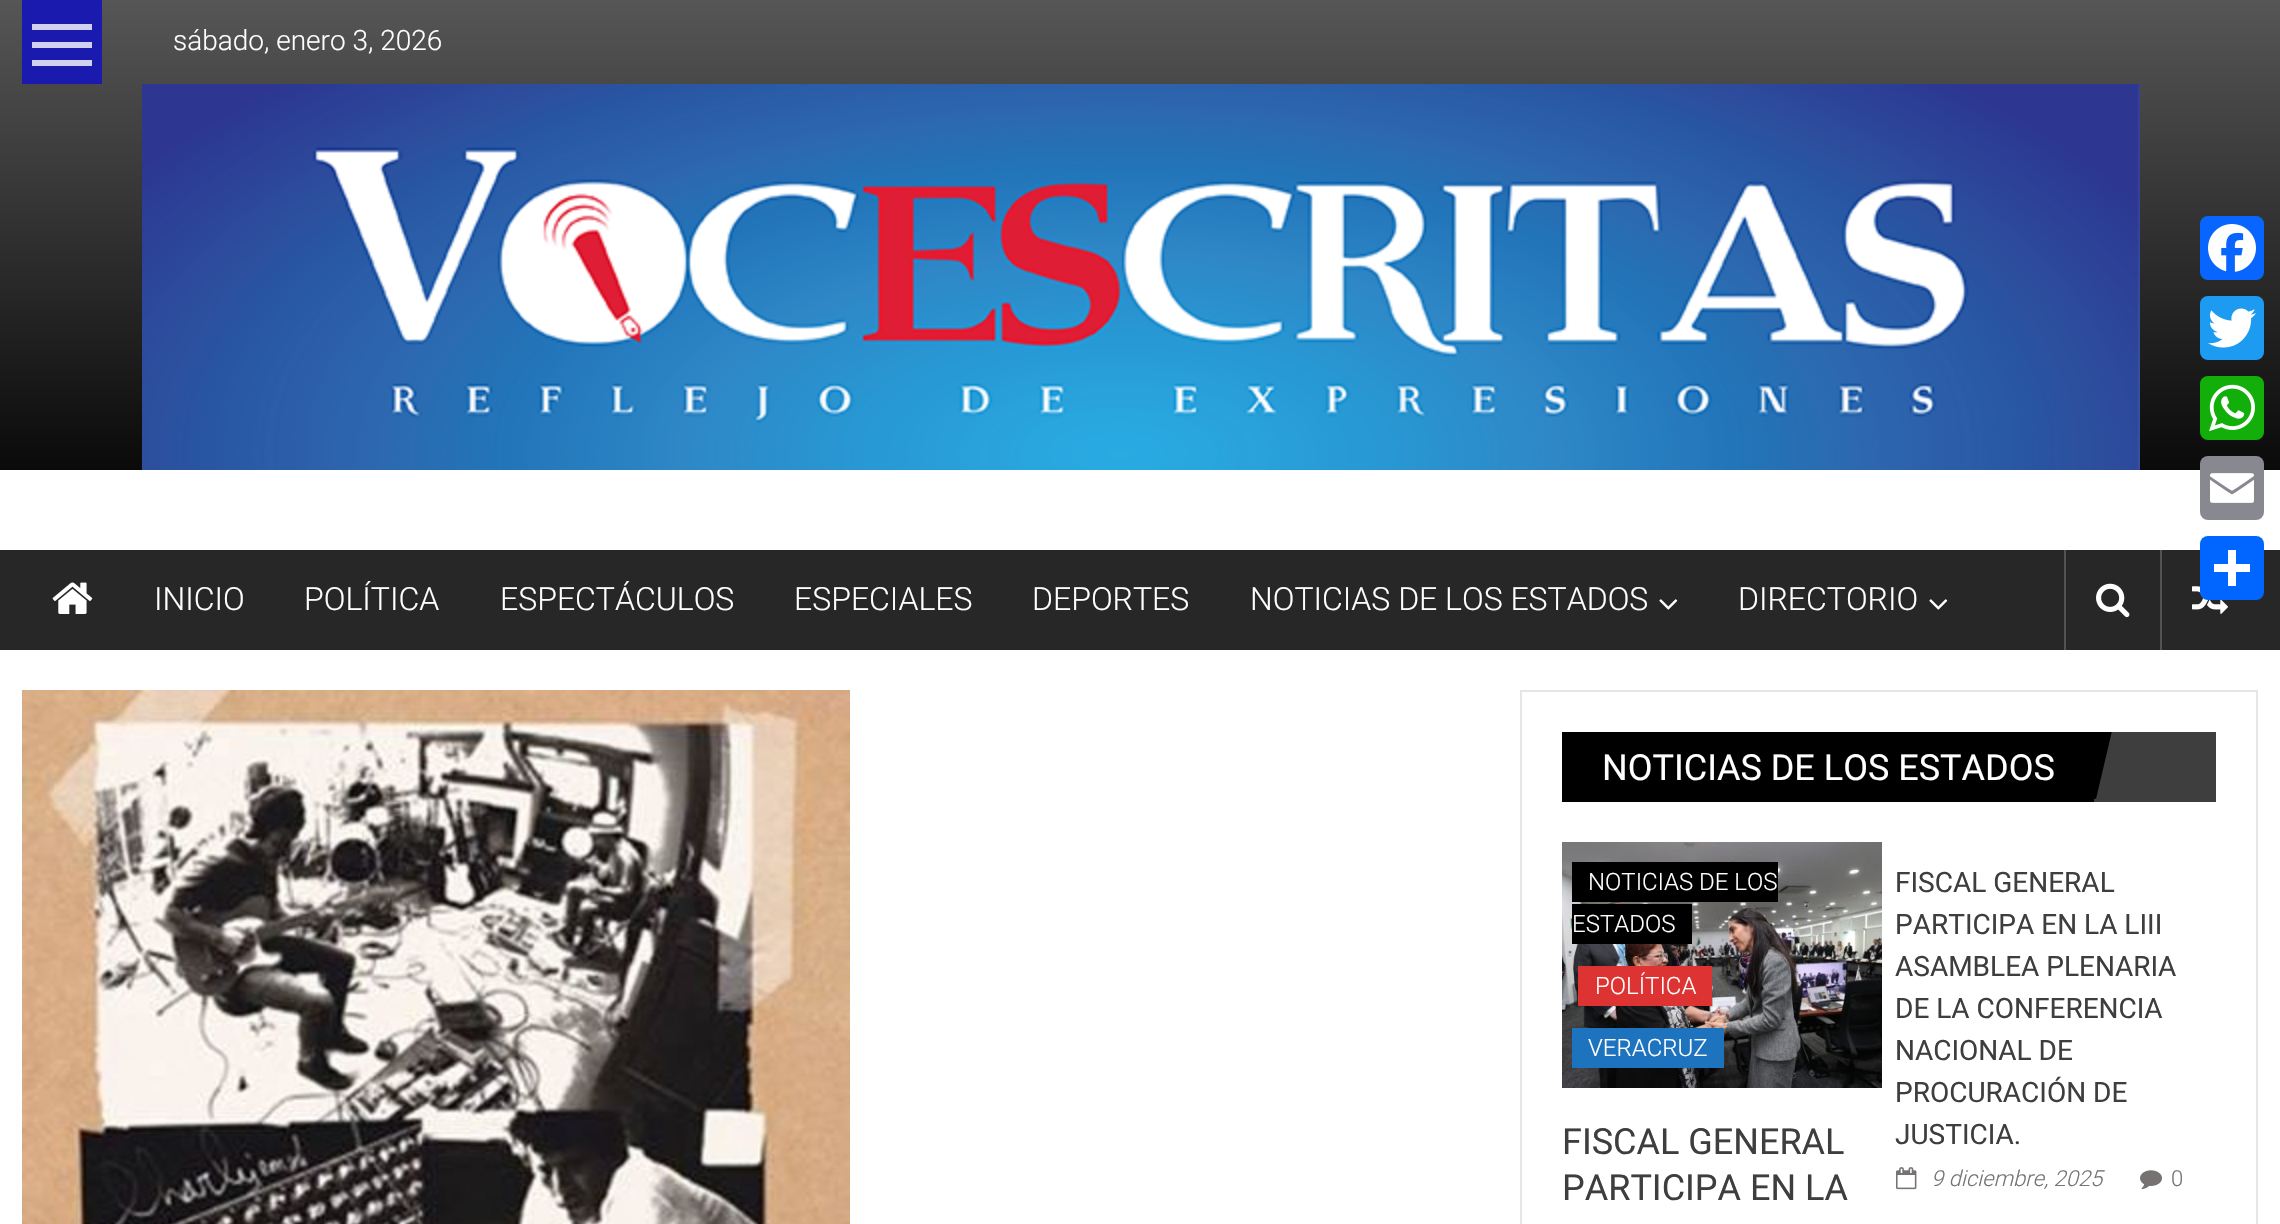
void draw(SkCanvas* c) {
SkPaint p;
p.setAntiAlias(true);
auto F=[&](const char* family, int weight, float size, bool italic = false){SkFontStyle style(weight, SkFontStyle::kNormal_Width,italic ? SkFontStyle::kItalic_Slant : SkFontStyle::kUpright_Slant);SkFont result(fontMgr->matchFamilyStyle(family, style), size);result.setSubpixel(true);return result;};
auto T=[&](const char* s, float x, float y, const SkFont& font){c->drawString(s, x, y, font, p);};
auto R=[&](float x, float y, float w, float h){c->drawRect(SkRect::MakeXYWH(x, y, w, h), p);};
auto Q=[&](float x, float y, float w, float h, float radius){c->drawRoundRect(SkRect::MakeXYWH(x, y, w, h), radius, radius, p);};
auto I=[&](const char* path, float x, float y, float w, float h){auto image = SkImages::DeferredFromEncodedData(SkData::MakeFromFileName(path));c->drawImageRect(image, SkRect::MakeXYWH(x, y, w, h), SkSamplingOptions());};
auto P=[&](const char* data, bool evenOdd = false){SkPath result = *SkParsePath::FromSVGString(data);if (evenOdd) result.setFillType(SkPathFillType::kEvenOdd);return result;};
c->clear(0xffffffff);
{
const SkColor colors[] = {0xff565656,0xff0a0a0a};
const float stops[] = {0,1};
const SkPoint ends[] = {{1140,0}, {1140,470}};
p.setShader(SkGradientShader::MakeLinear(ends, colors, stops, 2, SkTileMode::kClamp));
p.setAlpha(255);
}
R(0,0,2280,470);
p.setShader(nullptr);
p.setColor(0xff1a1aaf);
R(22,0,80,84);
p.setColor(0xffd1d1ef);
R(32,24,60,6);
R(32,42,60,6);
R(32,60,60,6);
auto f1 = F("Roboto",300,28);
p.setColor(0xffffffff);
T("sábado, enero 3, 2026",173,50,f1);
I("1.png",142,84,1998,386);
p.setColor(0xff272727);
R(0,550,2280,100);
I("2.png",52,582,41,32);
auto f2 = F("Roboto",300,32);
p.setColor(0xffffffff);
T("INICIO",154,610,f2);
T("POLÍTICA",304,610,f2);
T("ESPECTÁCULOS",500,610,f2);
T("ESPECIALES",794,610,f2);
T("DEPORTES",1032,610,f2);
T("NOTICIAS DE LOS ESTADOS",1250,610,f2);
I("3.png",1659,599,19,11);
T("DIRECTORIO",1738,610,f2);
I("3.png",1929,599,19,11);
p.setColor(0xff525252);
R(2064,550,2,100);
I("4.png",2096,583,34,35);
R(2160,550,2,100);
I("5.png",2192,586,36,28);
I("6.png",22,690,828,534);
p.setStroke(true);
p.setStrokeWidth(2);
p.setColor(0xffe6e6e6);
c->drawRect(SkRect::MakeXYWH(1521,691,736,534),p);
p.setStroke(false);
p.setColor(0xff3e3e3e);
R(2094,732,122,70);
p.setColor(0xff000000);
R(1562,732,532,70);
c->save();
c->clipRect(SkRect::MakeXYWH(1562,732,654,70));
c->drawPath(P("M2112 731l-16 68l-68-16l15-68z"),p);
c->restore();
auto f3 = F("Roboto",400,36);
p.setColor(0xffffffff);
T("NOTICIAS DE LOS ESTADOS",1602,780,f3);
I("7.png",1562,842,320,246);
p.setColor(0xff000000);
R(1572,862,206,40);
auto f4 = F("Roboto",300,24);
p.setColor(0xffffffff);
T("NOTICIAS DE LOS",1588,890,f4);
p.setColor(0xff000000);
R(1572,904,120,40);
p.setColor(0xffffffff);
T("ESTADOS",1572,932,f4);
p.setColor(0xffdd3333);
R(1578,966,134,40);
p.setColor(0xffffffff);
T("POLÍTICA",1595,994,f4);
p.setColor(0xff1e73be);
R(1572,1028,152,40);
p.setColor(0xffffffff);
T("VERACRUZ",1588,1056,f4);
p.setColor(0xff3e3e3e);
T("FISCAL GENERAL",1562,1154,f3);
T("PARTICIPA EN LA",1562,1200,f3);
auto f5 = F("Roboto",400,28);
T("FISCAL GENERAL",1895,892,f5);
T("PARTICIPA EN LA LIII",1895,934,f5);
T("ASAMBLEA PLENARIA",1895,976,f5);
T("DE LA CONFERENCIA",1895,1018,f5);
T("NACIONAL DE",1895,1060,f5);
T("PROCURACIÓN DE",1895,1102,f5);
T("JUSTICIA.",1895,1144,f5);
I("8.png",1896,1167,21,23);
auto f6 = F("Roboto",300,22,true);
p.setColor(0xff767272);
T("9 diciembre, 2025",1931,1186,f6);
I("9.png",2140,1170,22,20);
auto f7 = F("Roboto",300,22);
T("0",2171,1186,f7);
p.setColor(0xff0866ff);
Q(2200,216,64,64,8);
I("10.png",2208,224,48,48);
p.setColor(0xff1d9bf0);
Q(2200,296,64,64,8);
I("11.png",2208,308,48,40);
p.setColor(0xff12af0a);
Q(2200,376,64,64,8);
I("12.png",2209,384,46,48);
p.setColor(0xff888990);
Q(2200,456,64,64,8);
I("13.png",2210,473,44,30);
p.setColor(0xff0166ff);
Q(2200,536,64,64,8);
p.setColor(0xffffffff);
R(2228,550,8,36);
R(2214,564,36,8);
}
